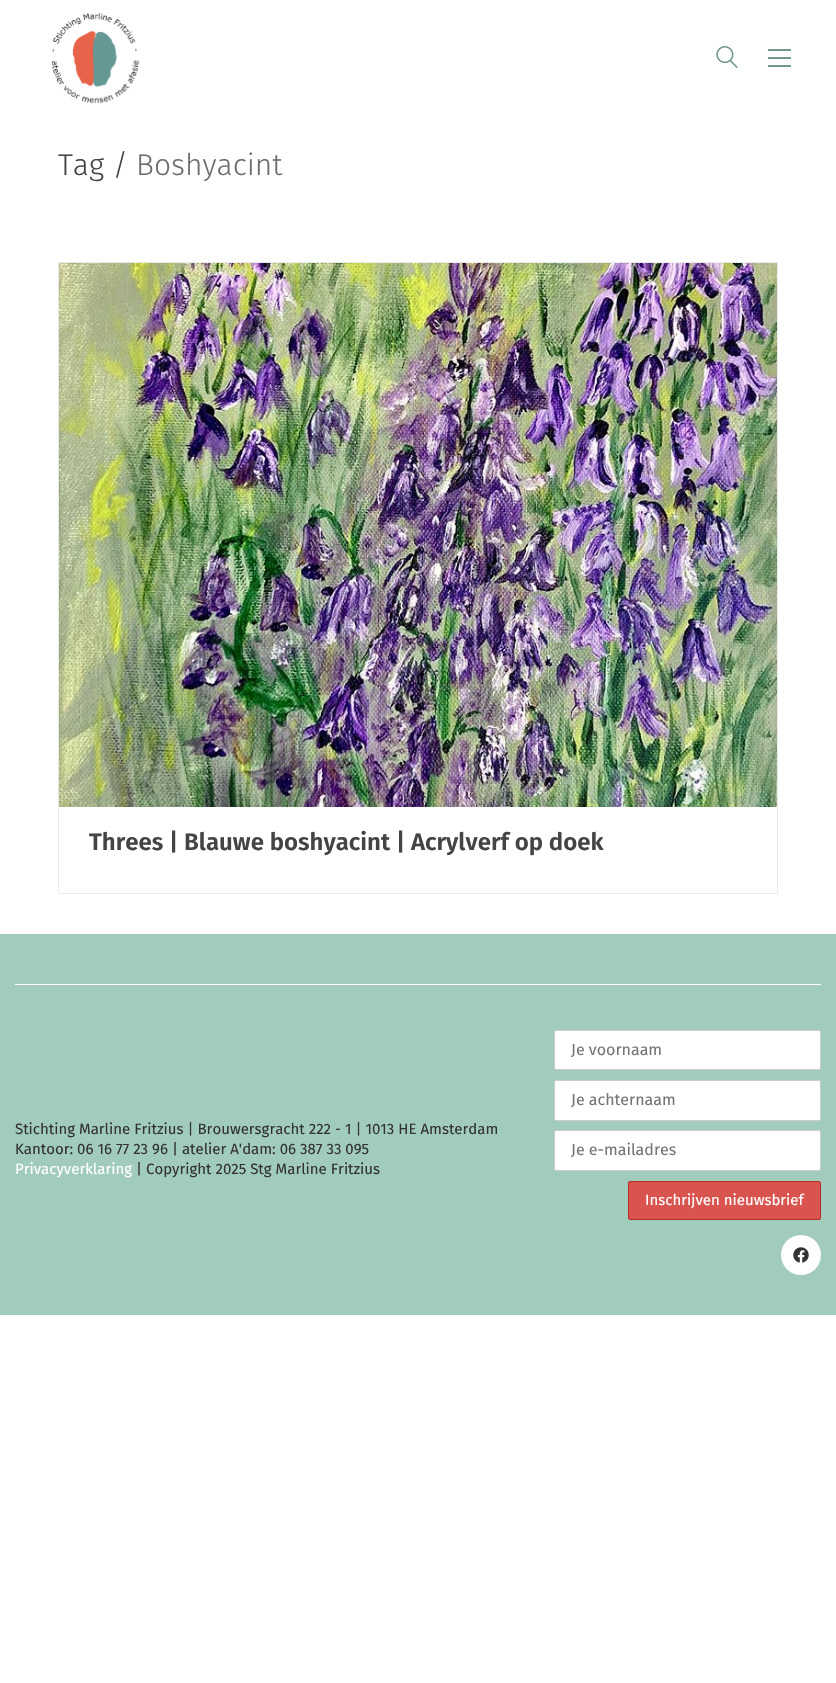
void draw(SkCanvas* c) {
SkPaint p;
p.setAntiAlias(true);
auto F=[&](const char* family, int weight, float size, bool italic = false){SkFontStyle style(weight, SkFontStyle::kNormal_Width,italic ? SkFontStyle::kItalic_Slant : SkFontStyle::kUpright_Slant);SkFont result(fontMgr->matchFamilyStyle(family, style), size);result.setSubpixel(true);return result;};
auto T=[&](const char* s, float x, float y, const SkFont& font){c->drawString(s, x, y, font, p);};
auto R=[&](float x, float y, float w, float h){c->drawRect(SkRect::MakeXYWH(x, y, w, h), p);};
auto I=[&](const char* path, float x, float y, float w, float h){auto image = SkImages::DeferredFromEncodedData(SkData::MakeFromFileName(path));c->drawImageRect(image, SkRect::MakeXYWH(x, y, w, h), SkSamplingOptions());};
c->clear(0xffffffff);
I("1.png",51,12,89,92);
I("2.png",716,46,22,22);
p.setColor(0xff71988b);
R(768,49,23,2);
R(768,57,23,2);
R(768,65,23,2);
auto f1 = F("Fira Sans",300,30);
p.setColor(0xff444444);
T("Tag /",58,175,f1);
p.setColor(0xff6d6d6d);
T("Boshyacint",136,175,f1);
p.setColor(0xffeaeaea);
R(58,262,720,1);
R(777,262,1,545);
R(58,262,1,545);
I("3.png",59,263,718,544);
R(777,807,1,87);
R(58,893,720,1);
R(58,807,1,87);
auto f2 = F("Fira Sans",600,24);
p.setColor(0xff444444);
T("Threes | Blauwe boshyacint | Acrylverf op doek",89,850,f2);
p.setColor(0xffa1cbbd);
R(0,934,836,381);
p.setColor(0xffffffff);
R(15,984,806,1);
auto f3 = F("Fira Sans",400,15);
p.setColor(0xff333333);
T("Stichting Marline Fritzius | Brouwersgracht 222 - 1 | 1013 HE Amsterdam",15,1134,f3);
T("Kantoor: 06 16 77 23 96 | atelier A'dam: 06 387 33 095",15,1154,f3);
p.setColor(0xffffffff);
T("Privacyverklaring",15,1174,f3);
p.setColor(0xff333333);
T("| Copyright 2025 Stg Marline Fritzius",136,1174,f3);
p.setColor(0xffffffff);
c->drawRoundRect(SkRect::MakeXYWH(554.5,1030.5,266,39),1.5,1.5,p);
p.setStroke(true);
p.setStrokeWidth(1);
p.setColor(0xffcccccc);
c->drawRoundRect(SkRect::MakeXYWH(554.5,1030.5,266,39),1.5,1.5,p);
auto f4 = F("Fira Sans",400,16);
p.setStroke(false);
p.setColor(0xff757575);
T("Je voornaam",571,1055,f4);
p.setColor(0xffffffff);
c->drawRoundRect(SkRect::MakeXYWH(554.5,1080.5,266,40),1.5,1.5,p);
p.setStroke(true);
p.setColor(0xffcccccc);
c->drawRoundRect(SkRect::MakeXYWH(554.5,1080.5,266,40),1.5,1.5,p);
p.setStroke(false);
p.setColor(0xff757575);
T("Je achternaam",571,1105,f4);
p.setColor(0xffffffff);
c->drawRoundRect(SkRect::MakeXYWH(554.5,1130.5,266,40),1.5,1.5,p);
p.setStroke(true);
p.setColor(0xffcccccc);
c->drawRoundRect(SkRect::MakeXYWH(554.5,1130.5,266,40),1.5,1.5,p);
p.setStroke(false);
p.setColor(0xff757575);
T("Je e-mailadres",571,1155,f4);
p.setColor(0xffd9534f);
c->drawRoundRect(SkRect::MakeXYWH(628.5,1181.5,192,38),1.5,1.5,p);
p.setStroke(true);
p.setColor(0xffb52b27);
c->drawRoundRect(SkRect::MakeXYWH(628.5,1181.5,192,38),1.5,1.5,p);
p.setStroke(false);
p.setColor(0xffffffff);
T("Inschrijven nieuwsbrief",645,1205,f3);
c->drawCircle(801,1255,20,p);
I("4.png",793,1247,16,16);
}
